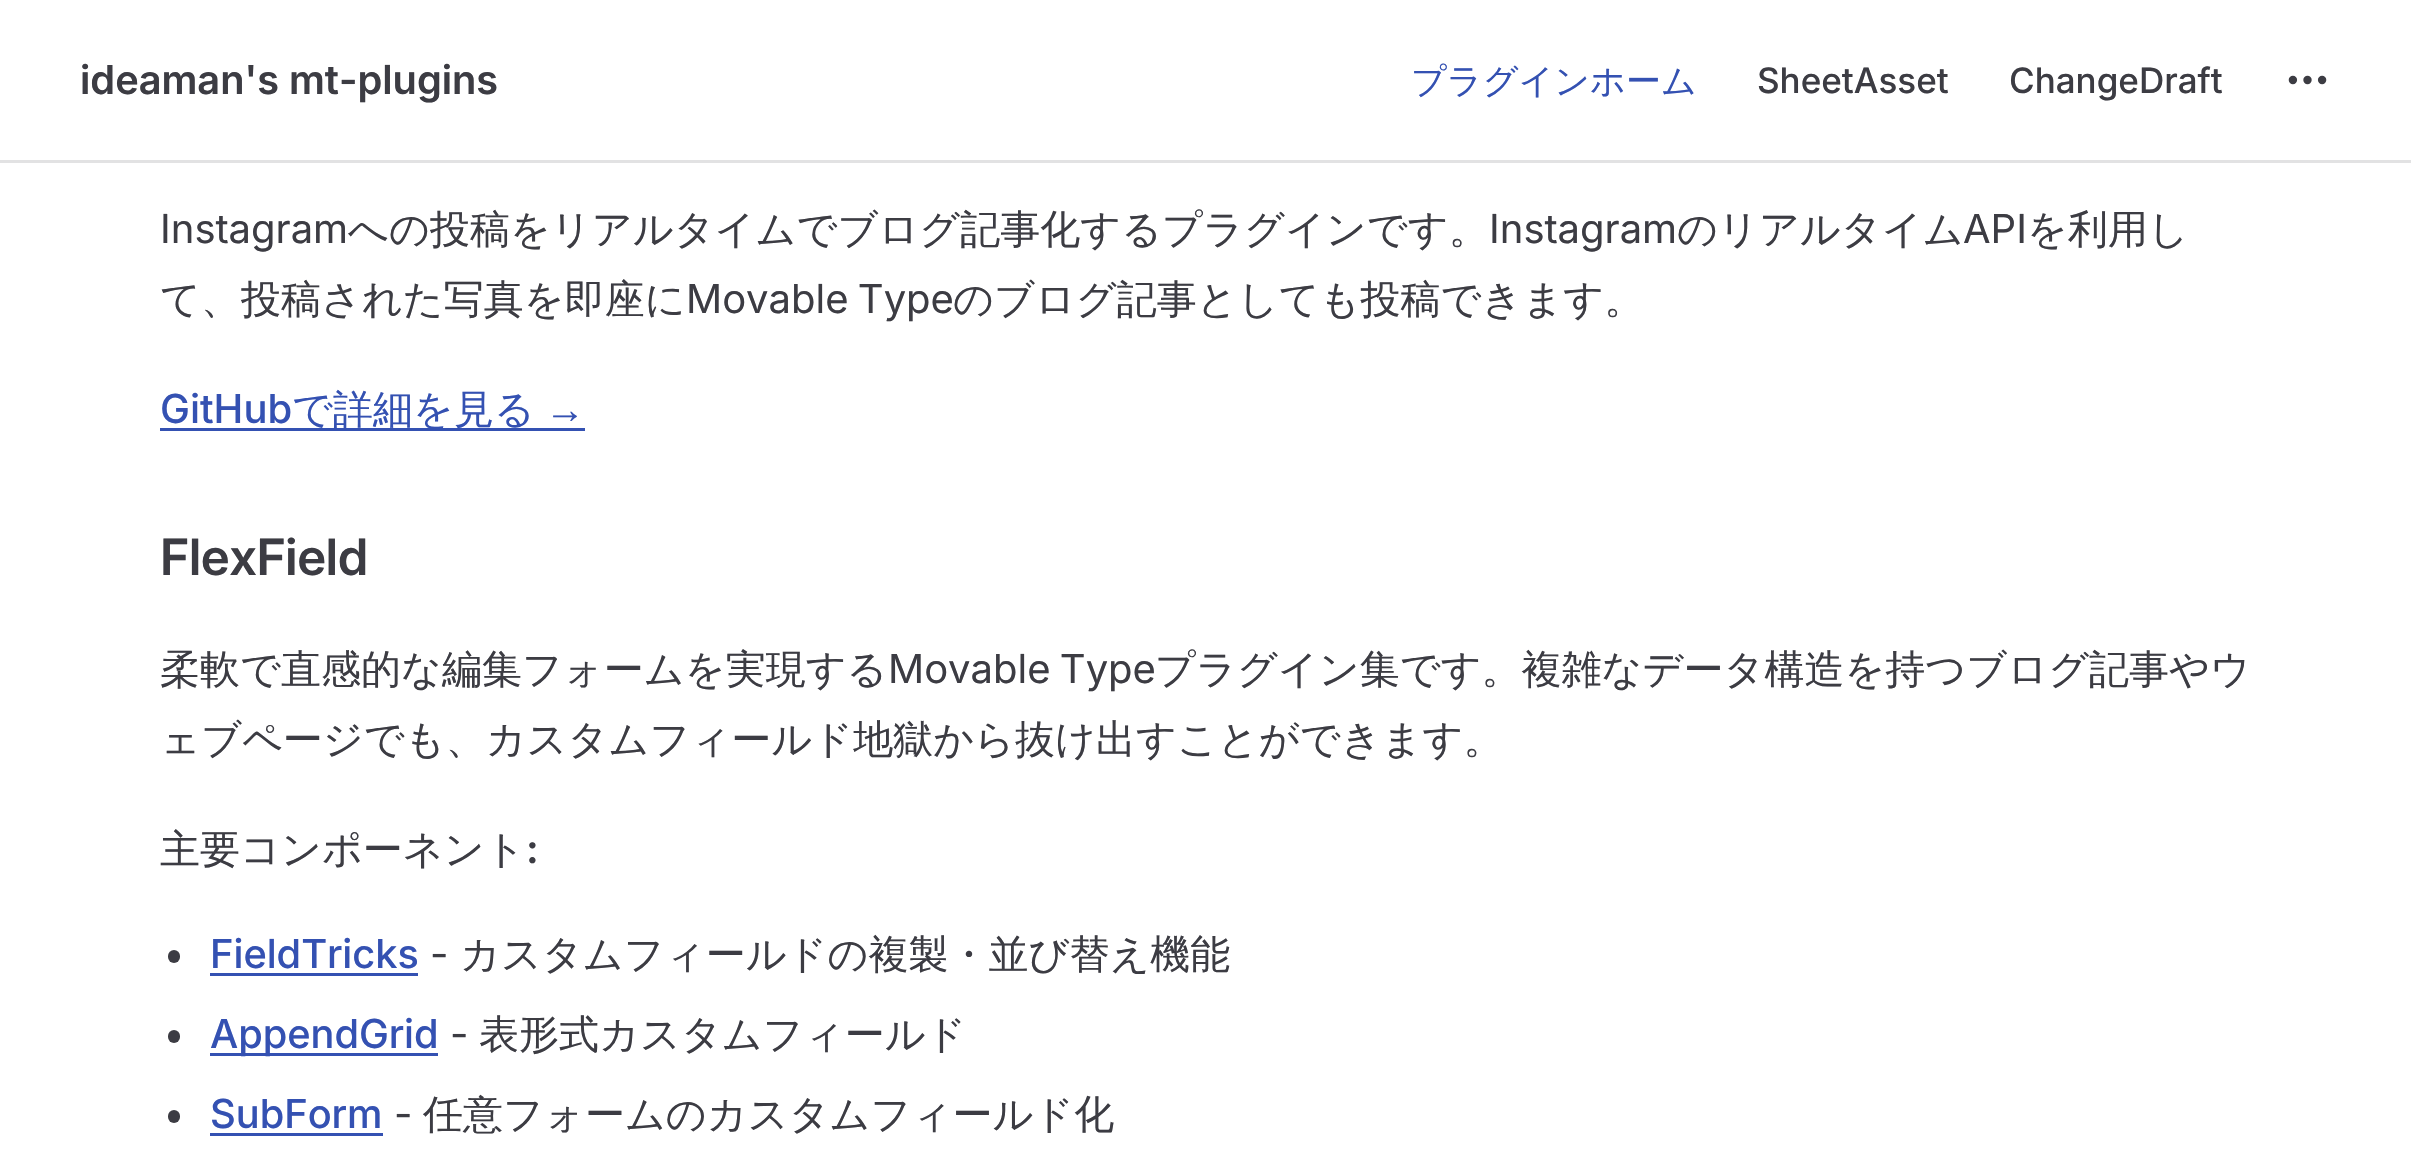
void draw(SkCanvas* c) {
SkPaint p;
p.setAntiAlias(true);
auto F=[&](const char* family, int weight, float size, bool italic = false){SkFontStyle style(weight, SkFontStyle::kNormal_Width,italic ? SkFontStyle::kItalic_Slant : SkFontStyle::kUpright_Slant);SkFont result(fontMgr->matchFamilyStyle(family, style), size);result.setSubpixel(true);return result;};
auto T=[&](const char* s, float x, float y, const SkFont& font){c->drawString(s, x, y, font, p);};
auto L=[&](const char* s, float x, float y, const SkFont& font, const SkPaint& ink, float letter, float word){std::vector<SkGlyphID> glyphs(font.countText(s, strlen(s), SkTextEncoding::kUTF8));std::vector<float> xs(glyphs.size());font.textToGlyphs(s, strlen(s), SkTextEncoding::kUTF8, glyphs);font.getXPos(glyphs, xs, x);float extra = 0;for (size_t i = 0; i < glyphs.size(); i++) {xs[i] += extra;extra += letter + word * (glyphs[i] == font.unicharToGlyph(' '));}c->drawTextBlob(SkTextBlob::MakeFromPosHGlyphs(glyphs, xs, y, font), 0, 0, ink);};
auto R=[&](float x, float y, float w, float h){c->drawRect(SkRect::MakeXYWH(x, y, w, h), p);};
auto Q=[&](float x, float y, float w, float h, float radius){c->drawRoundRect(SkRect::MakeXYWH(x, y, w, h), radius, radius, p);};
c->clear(0xffffffff);
auto f1 = F("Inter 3",600,40);
p.setColor(0xff3c3c43);
T("ideaman's mt-plugins",80,94,f1);
auto f2 = F("WenQuanYi Zen Hei",500,35);
p.setColor(0xff3451b2);
T("プラグインホーム",1411,93,f2);
auto f3 = F("Inter",500,35);
p.setColor(0xff3c3c43);
T("SheetAsset",1757,93,f3);
T("ChangeDraft",2009,93,f3);
p.setStroke(true);
p.setStrokeWidth(4.2);
c->drawCircle(2307.5,80,2.1,p);
c->drawCircle(2322.1,80,2.1,p);
c->drawCircle(2292.9,80,2.1,p);
p.setStroke(false);
p.setColor(0xffe2e2e3);
R(0,160,2411,3);
auto f4 = F("Inter",400,40);
p.setColor(0xff3c3c43);
T("Instagram",160,243,f4);
auto f5 = F("WenQuanYi Zen Hei",500,40);
T("への投稿をリアルタイムでブログ記事化するプラグインです。",348,243,f5);
T("Instagram",1489,243,f4);
T("のリアルタイム",1677,243,f5);
T("API",1963,243,f4);
T("を利用し",2027,243,f5);
T("て、投稿された写真を即座に",160,313,f5);
L("Movable Type",686,313,f4,p,0,-2);
T("のブログ記事としても投稿できます。",953,313,f5);
auto f6 = F("Inter",500,40);
p.setColor(0xff3451b2);
T("GitHub",160,423,f6);
R(160,428,425,3);
T("で詳細を見る",292,423,f5);
auto f7 = F("Liberation Sans",400,40);
T("→",545,423,f7);
auto f8 = F("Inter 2",600,50);
p.setColor(0xff3c3c43);
L("FlexField",160,575,f8,p,-.5,0);
T("柔軟で直感的な編集フォームを実現する",160,683,f5);
L("Movable Type",888,683,f4,p,0,-2);
T("プラグイン集です。複雑なデータ構造を持つブログ記事やウ",1155,683,f5);
T("ェブページでも、カスタムフィールド地獄から抜け出すことができます。",160,753,f5);
T("主要コンポーネント",160,863,f5);
auto f9 = F("Inter",600,40);
T(":",526,863,f9);
Q(168,950,12,13,6);
auto f10 = F("Inter 2",500,40);
p.setColor(0xff3451b2);
T("FieldTricks",210,968,f10);
R(210,973,208,3);
p.setColor(0xff3c3c43);
T("-",430,968,f4);
T("カスタムフィールドの複製・並び替え機能",460,968,f5);
Q(168,1030,12,13,6);
p.setColor(0xff3451b2);
R(210,1053,228,3);
T("AppendGrid",210,1048,f10);
p.setColor(0xff3c3c43);
T("-",450,1048,f4);
T("表形式カスタムフィールド",479,1048,f5);
Q(168,1110,12,13,6);
p.setColor(0xff3451b2);
T("SubForm",210,1128,f10);
R(210,1133,173,3);
p.setColor(0xff3c3c43);
T("-",394,1128,f4);
T("任意フォームのカスタムフィールド化",423,1128,f5);
}
